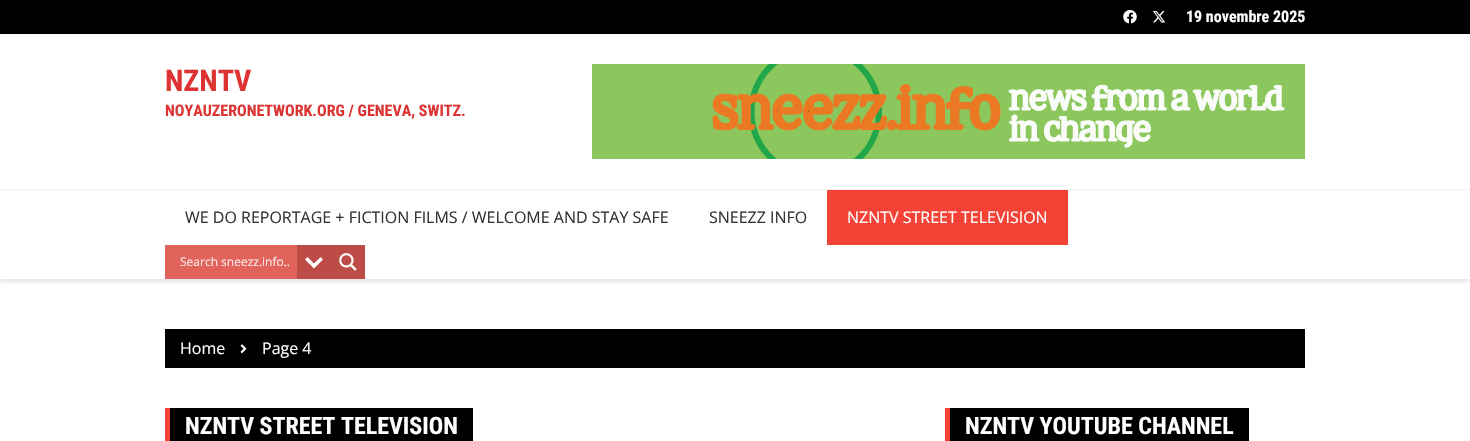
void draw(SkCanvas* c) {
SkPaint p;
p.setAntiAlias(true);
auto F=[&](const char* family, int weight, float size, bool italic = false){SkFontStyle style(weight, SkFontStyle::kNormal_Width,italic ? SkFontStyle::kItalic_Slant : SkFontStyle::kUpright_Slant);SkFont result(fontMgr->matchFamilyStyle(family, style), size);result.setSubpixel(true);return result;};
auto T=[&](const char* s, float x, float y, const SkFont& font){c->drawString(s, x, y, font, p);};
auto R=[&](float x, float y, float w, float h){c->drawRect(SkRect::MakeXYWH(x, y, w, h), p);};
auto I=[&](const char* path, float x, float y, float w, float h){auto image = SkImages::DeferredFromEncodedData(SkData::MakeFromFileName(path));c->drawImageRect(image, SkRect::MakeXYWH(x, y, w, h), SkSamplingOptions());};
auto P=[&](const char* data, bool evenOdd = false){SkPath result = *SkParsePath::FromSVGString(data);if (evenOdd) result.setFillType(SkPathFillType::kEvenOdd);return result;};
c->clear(0xffffffff);
p.setColor(0xff000000);
R(0,0,1470,34);
I("1.png",1123,10,14,14);
I("2.png",1152,11,14,12);
auto f1 = F("Roboto Condensed",700,16);
p.setColor(0xffffffff);
T("19 novembre 2025",1186,22,f1);
auto f2 = F("Roboto Condensed",700,30);
p.setColor(0xffdd3333);
T("NZNTV",165,91,f2);
T("NOYAUZERONETWORK.ORG / GENEVA, SWITZ.",165,116,f1);
I("3.png",592,64,713,95);
c->save();
c->clipRect(SkRect::MakeXYWH(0,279,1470,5));
p.setColor(0x1a000000);
p.setMaskFilter(SkMaskFilter::MakeBlur(kNormal_SkBlurStyle, 2.5));
c->drawRect(SkRect::MakeXYWH(0,192,1470,90),p);
p.setMaskFilter(nullptr);
c->restore();
p.setColor(0xfff2f2f2);
R(0,189,1470,1);
auto f3 = F("Open Sans",400,16);
p.setColor(0xff333333);
T("WE DO REPORTAGE + FICTION FILMS / WELCOME AND STAY SAFE",185,223,f3);
T("SNEEZZ INFO",709,223,f3);
p.setColor(0xfff44336);
R(827,190,241,55);
p.setColor(0xffffffff);
T("NZNTV STREET TELEVISION",847,223,f3);
p.setColor(0xffe1635c);
R(165,245,132,34);
p.setColor(0xffbe4c46);
R(297,245,68,34);
p.setColor(0xffffffff);
c->drawPath(P("M320.5 257l2.5 2.5l-9 9l-9-9l2.5-2.5l6.5 6.5z"),p);
auto f4 = F("Open Sans",400,12);
p.setColor(0xfffbe8e7);
T("Search sneezz.info..",180,266,f4);
I("4.png",339,253,18,18);
p.setColor(0xff000000);
R(165,329,1140,39);
p.setColor(0xffffffff);
T("Home",180,354,f3);
I("5.png",240,344,7,10);
T("Page 4",262,354,f3);
p.setColor(0xfff44336);
c->drawPath(P("M165 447v-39h5v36z"),p);
p.setColor(0xff000000);
R(170,408,303,33);
auto f5 = F("Roboto Condensed",700,24);
p.setColor(0xffffffff);
T("NZNTV STREET TELEVISION",185,434,f5);
p.setColor(0xfff44336);
c->drawPath(P("M945 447v-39h5v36z"),p);
p.setColor(0xff000000);
R(950,408,299,33);
p.setColor(0xffffffff);
T("NZNTV YOUTUBE CHANNEL",965,434,f5);
}
